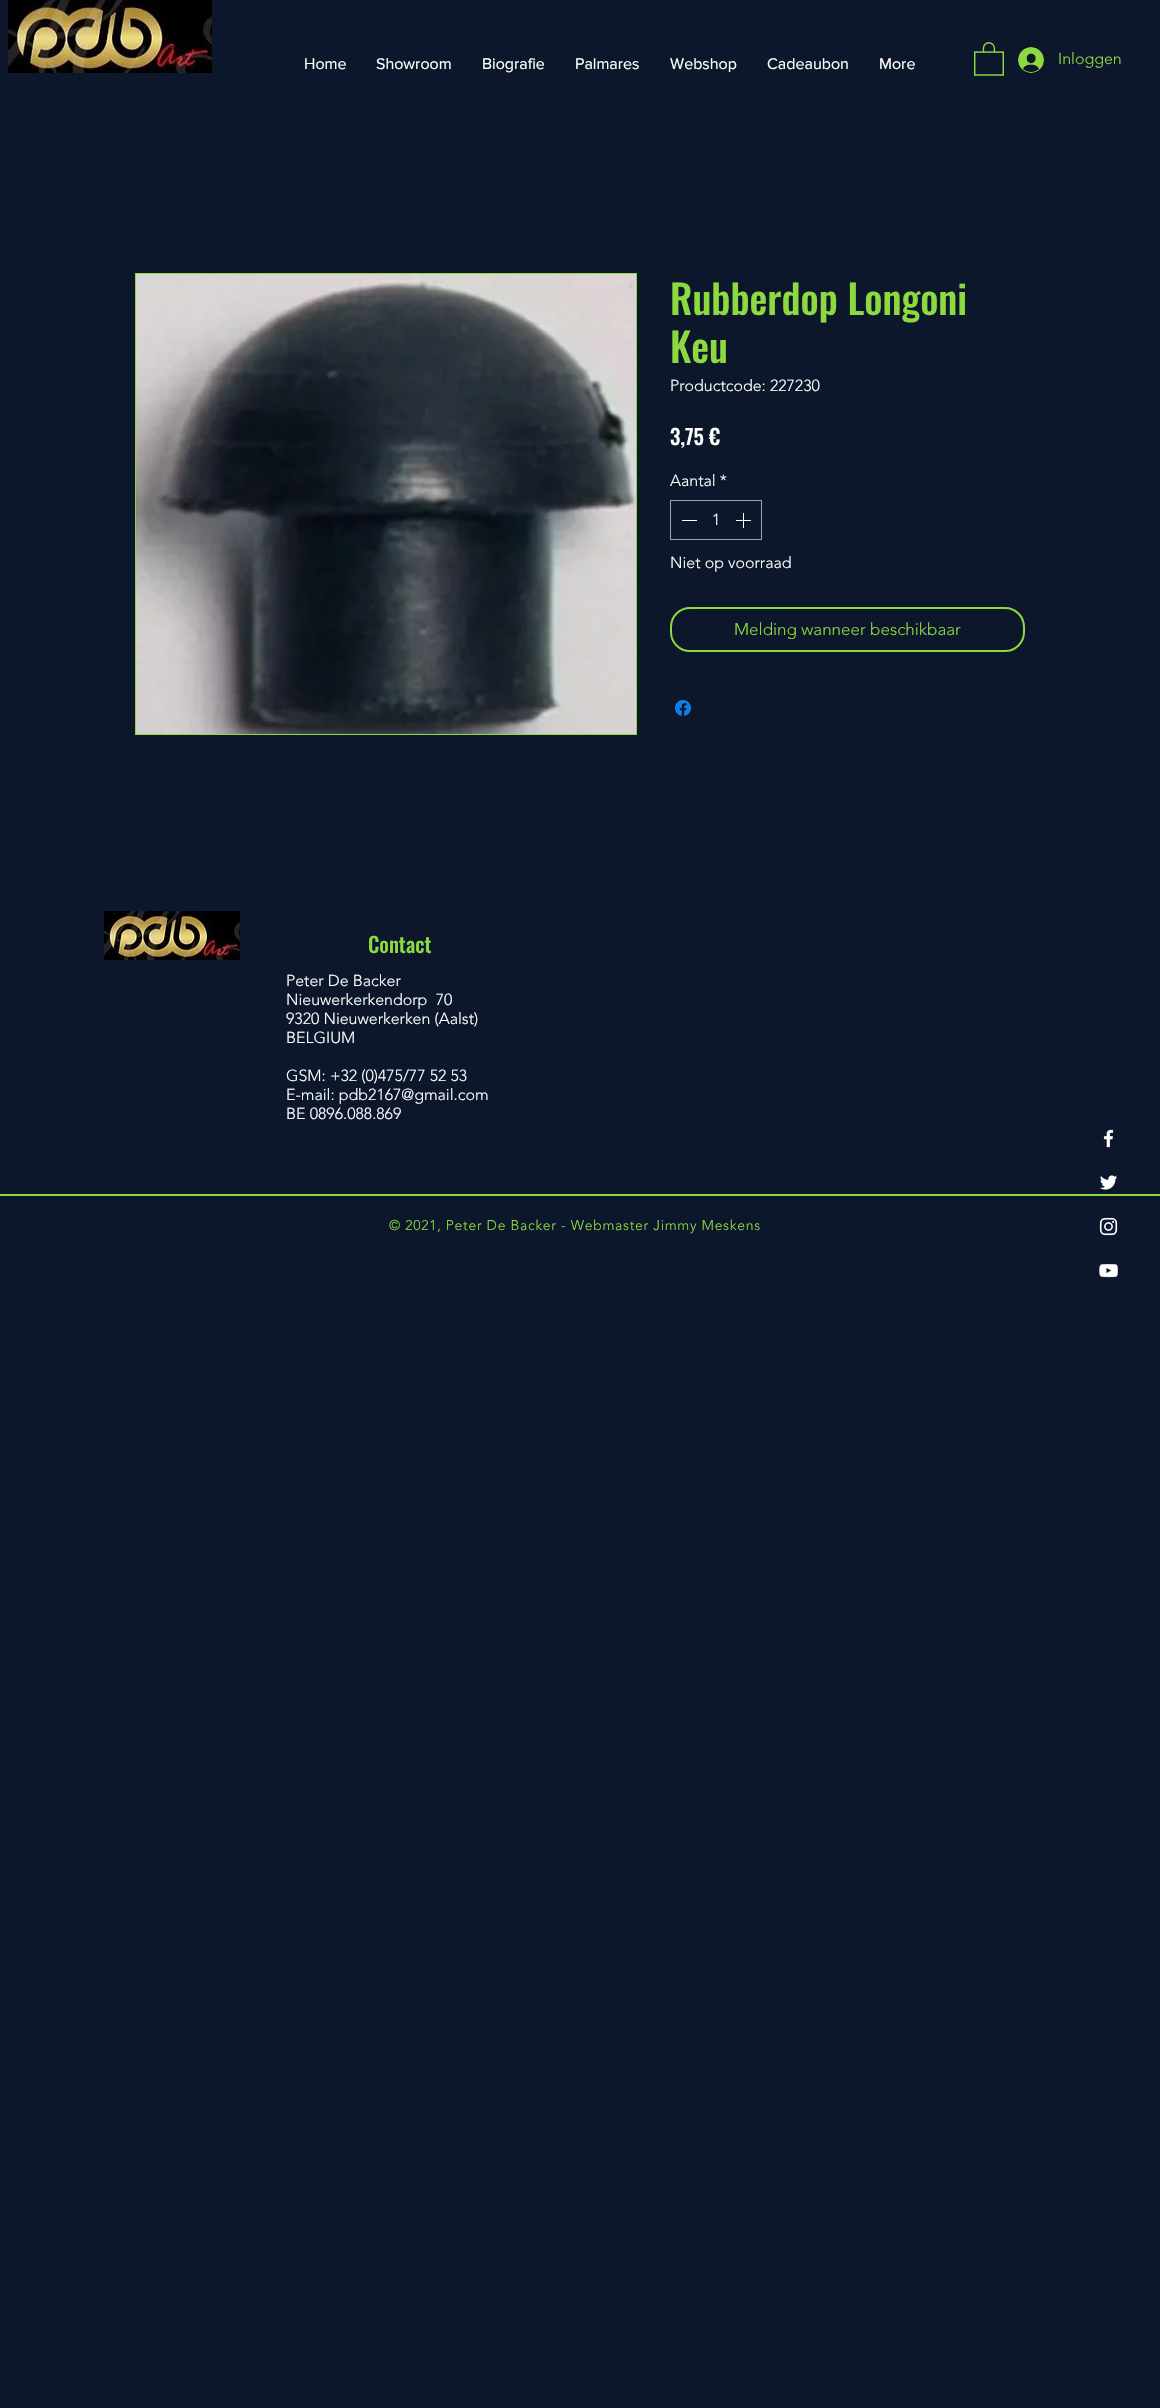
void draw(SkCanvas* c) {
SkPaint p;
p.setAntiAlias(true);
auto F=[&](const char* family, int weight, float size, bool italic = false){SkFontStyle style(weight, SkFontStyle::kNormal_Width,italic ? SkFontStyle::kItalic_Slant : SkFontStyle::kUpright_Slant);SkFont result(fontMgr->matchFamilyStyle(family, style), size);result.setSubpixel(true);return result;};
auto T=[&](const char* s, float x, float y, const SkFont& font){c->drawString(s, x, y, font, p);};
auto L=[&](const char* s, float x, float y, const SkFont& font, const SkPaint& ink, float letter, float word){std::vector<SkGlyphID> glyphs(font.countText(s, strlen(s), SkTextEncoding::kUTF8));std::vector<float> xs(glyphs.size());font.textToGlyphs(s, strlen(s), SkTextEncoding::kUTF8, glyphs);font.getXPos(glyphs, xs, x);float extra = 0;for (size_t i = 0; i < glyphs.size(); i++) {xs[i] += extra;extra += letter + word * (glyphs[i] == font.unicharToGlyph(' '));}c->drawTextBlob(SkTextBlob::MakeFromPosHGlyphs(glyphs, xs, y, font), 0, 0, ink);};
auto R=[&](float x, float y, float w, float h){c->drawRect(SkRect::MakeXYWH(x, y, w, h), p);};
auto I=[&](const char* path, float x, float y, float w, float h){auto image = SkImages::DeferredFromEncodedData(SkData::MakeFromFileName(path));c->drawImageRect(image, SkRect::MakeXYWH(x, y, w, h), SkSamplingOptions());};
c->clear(0xff0c172b);
I("1.png",8,0,204,73);
auto f1 = F("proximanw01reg",400,16);
p.setColor(0xffffffff);
T("Home",304,69,f1);
T("Showroom",376,69,f1);
T("Biografie",482,69,f1);
T("Palmares",575,69,f1);
T("Webshop",670,69,f1);
T("Cadeaubon",767,69,f1);
T("More",879,69,f1);
I("2.png",974,42,30,34);
I("3.png",1018,47,26,26);
auto f2 = F("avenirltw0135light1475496",300,16);
p.setColor(0xff8cda3f);
T("Inloggen",1058,64,f2);
p.setStroke(true);
p.setStrokeWidth(1);
c->drawRect(SkRect::MakeXYWH(135.5,273.5,501,461),p);
I("4.png",136,274,500,460);
auto f3 = F("Oswald",500,40);
p.setStroke(false);
T("Rubberdop Longoni",670,315,f3);
T("Keu",670,363,f3);
p.setColor(0xffffffff);
T("Productcode: 227230",670,391,f2);
auto f4 = F("Oswald",500,21);
T("3,75 €",670,445,f4);
T("Aantal *",670,486,f2);
p.setStroke(true);
p.setColor(0xff9ea2aa);
c->drawRect(SkRect::MakeXYWH(670.5,500.5,91,39),p);
p.setStroke(false);
p.setColor(0xffffffff);
R(682,520,15,1);
T("1",712,525,f2);
I("5.png",736,513,15,15);
T("Niet op voorraad",670,568,f2);
p.setStroke(true);
p.setStrokeWidth(2);
p.setColor(0xff8cda3f);
c->drawRoundRect(SkRect::MakeXYWH(671,608,353,43),19,19,p);
auto f5 = F("avenirltw0135light1475496",300,17);
p.setStroke(false);
T("Melding wanneer beschikbaar",734,635,f5);
I("6.png",675,700,16,16);
I("7.png",104,911,136,49);
T("Contact",368,953,f4);
p.setColor(0xffffffff);
T("Peter De Backer",286,986,f2);
T("Nieuwerkerkendorp  70",286,1005,f2);
T("9320 Nieuwerkerken (Aalst)",286,1024,f2);
T("BELGIUM",286,1043,f2);
T("GSM: +32 (0)475/77 52 53",286,1081,f2);
T("E-mail: pdb2167@gmail.com",286,1100,f2);
T("BE 0896.088.869",286,1119,f2);
p.setColor(0xff8cda3f);
R(0,1194,1160,2);
auto f6 = F("avenirltw0135light1475496",300,14);
L("© 2021, Peter De Backer - Webmaster Jimmy Meskens",389,1230,f6,p,.7,0);
I("8.png",1103,1129,11,19);
I("9.png",1100,1175,17,15);
I("10.png",1099,1217,19,19);
I("11.png",1099,1264,19,14);
}
